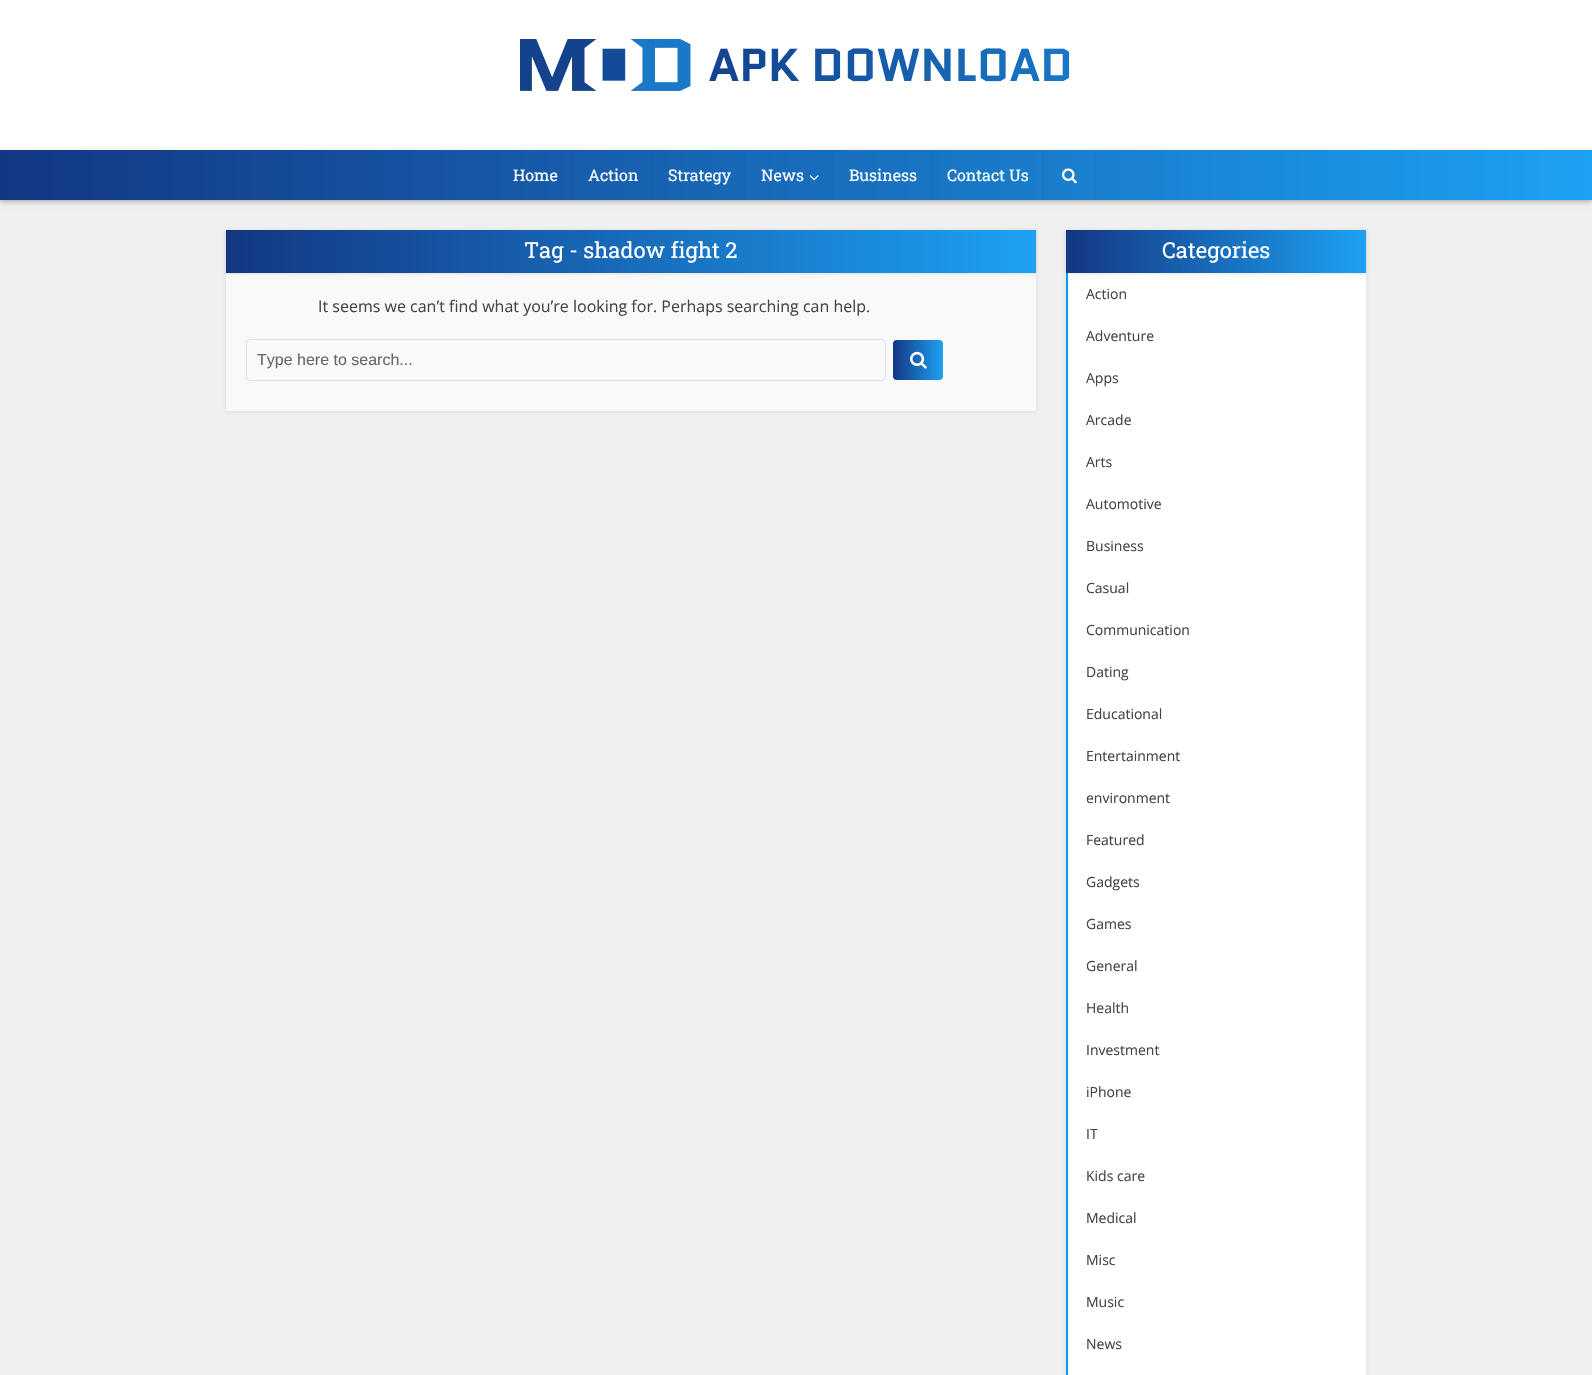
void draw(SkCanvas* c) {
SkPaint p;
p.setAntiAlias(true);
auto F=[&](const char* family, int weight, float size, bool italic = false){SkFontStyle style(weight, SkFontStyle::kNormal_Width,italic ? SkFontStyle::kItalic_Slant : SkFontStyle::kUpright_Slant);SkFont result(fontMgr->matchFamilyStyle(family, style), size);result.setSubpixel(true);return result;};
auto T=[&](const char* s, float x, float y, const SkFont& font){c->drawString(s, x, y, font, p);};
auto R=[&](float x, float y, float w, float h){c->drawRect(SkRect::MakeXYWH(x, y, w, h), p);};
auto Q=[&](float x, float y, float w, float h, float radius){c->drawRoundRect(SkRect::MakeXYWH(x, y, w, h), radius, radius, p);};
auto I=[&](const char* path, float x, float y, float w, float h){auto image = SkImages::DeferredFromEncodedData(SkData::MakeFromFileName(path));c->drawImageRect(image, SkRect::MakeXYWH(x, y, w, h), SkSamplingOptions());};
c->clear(0xfff0f0f0);
p.setColor(0x1a000000);
p.setMaskFilter(SkMaskFilter::MakeBlur(kNormal_SkBlurStyle, 1.5));
c->drawRect(SkRect::MakeXYWH(0,1,1592,200),p);
p.setMaskFilter(nullptr);
p.setColor(0xffffffff);
R(0,0,1592,150);
I("1.png",520,39,550,52);
p.setColor(0x33000000);
p.setMaskFilter(SkMaskFilter::MakeBlur(kNormal_SkBlurStyle, 3));
c->drawRect(SkRect::MakeXYWH(0,152,1592,50),p);
p.setMaskFilter(nullptr);
{
const SkColor colors[] = {0xff133783,0xff1da1f2};
const float stops[] = {0,1};
const SkPoint ends[] = {{0,175}, {1592,175}};
p.setShader(SkGradientShader::MakeLinear(ends, colors, stops, 2, SkTileMode::kClamp));
p.setAlpha(255);
}
R(0,150,1592,50);
p.setShader(nullptr);
p.setColor(0xff15549e);
R(497,150,1,50);
auto f1 = F("Roboto Slab",400,16);
p.setColor(0xffffffff);
T("Home",513,181,f1);
p.setColor(0xff1658a2);
R(572,150,1,50);
p.setColor(0xffffffff);
T("Action",588,181,f1);
p.setColor(0xff165da7);
R(652,150,1,50);
p.setColor(0xffffffff);
T("Strategy",668,181,f1);
p.setColor(0xff1764ae);
R(745,150,1,50);
p.setColor(0xffffffff);
T("News",761,181,f1);
I("2.png",809,175,10,6);
p.setColor(0xff1769b4);
R(833,150,1,50);
p.setColor(0xffffffff);
T("Business",849,181,f1);
p.setColor(0xff186fba);
R(931,150,1,50);
p.setColor(0xffffffff);
T("Contact Us",947,181,f1);
p.setColor(0xff197ac5);
R(1094,150,1,50);
p.setColor(0xff1976c2);
R(1043,150,1,50);
I("3.png",1062,168,15,16);
p.setColor(0x1a000000);
p.setMaskFilter(SkMaskFilter::MakeBlur(kNormal_SkBlurStyle, 1.5));
c->drawRect(SkRect::MakeXYWH(226,231,810,181),p);
p.setMaskFilter(nullptr);
p.setColor(0xfff9f9f9);
R(226,273,810,138);
p.setColor(0x1a000000);
p.setMaskFilter(SkMaskFilter::MakeBlur(kNormal_SkBlurStyle, 1.5));
c->drawRect(SkRect::MakeXYWH(226,231,810,43),p);
p.setMaskFilter(nullptr);
{
const SkColor colors[] = {0xff133783,0xff1da1f2};
const float stops[] = {0,1};
const SkPoint ends[] = {{226,252}, {1036,251}};
p.setShader(SkGradientShader::MakeLinear(ends, colors, stops, 2, SkTileMode::kClamp));
p.setAlpha(255);
}
R(226,230,810,43);
auto f2 = F("Roboto Slab",400,22);
p.setShader(nullptr);
p.setColor(0xffffffff);
T("Tag - shadow fight 2",524,258,f2);
auto f3 = F("Open Sans",400,16);
p.setColor(0xff444444);
T("It seems we can’t find what you’re looking for. Perhaps searching can help.",318,312,f3);
p.setStroke(true);
p.setStrokeWidth(1);
p.setColor(0xffe0e0e0);
c->drawRoundRect(SkRect::MakeXYWH(246.5,339.5,639,41),3.5,3.5,p);
auto f4 = F("Liberation Sans",400,16);
p.setStroke(false);
p.setColor(0xff666666);
T("Type here to search...",257,365,f4);
{
const SkColor colors[] = {0xff133783,0xff1da1f2};
const float stops[] = {0,1};
const SkPoint ends[] = {{893,360}, {943,360}};
p.setShader(SkGradientShader::MakeLinear(ends, colors, stops, 2, SkTileMode::kClamp));
p.setAlpha(255);
}
Q(893,340,50,40,4);
I("4.png",910,351,17,18);
p.setShader(nullptr);
p.setColor(0x1a000000);
p.setMaskFilter(SkMaskFilter::MakeBlur(kNormal_SkBlurStyle, 1.5));
c->drawRect(SkRect::MakeXYWH(1066,231,300,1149),p);
p.setMaskFilter(nullptr);
p.setColor(0xffffffff);
R(1068,273,298,1102);
p.setColor(0x1a000000);
p.setMaskFilter(SkMaskFilter::MakeBlur(kNormal_SkBlurStyle, 1.5));
c->drawRect(SkRect::MakeXYWH(1066,231,300,43),p);
p.setMaskFilter(nullptr);
{
const SkColor colors[] = {0xff133783,0xff1da1f2};
const float stops[] = {0,1};
const SkPoint ends[] = {{1066,252}, {1366,252}};
p.setShader(SkGradientShader::MakeLinear(ends, colors, stops, 2, SkTileMode::kClamp));
p.setAlpha(255);
}
R(1066,230,300,43);
p.setShader(nullptr);
p.setColor(0xffffffff);
T("Categories",1162,258,f2);
p.setColor(0xff009cff);
R(1066,273,2,1102);
auto f5 = F("Open Sans",400,14);
p.setColor(0xff444444);
T("Action",1086,299,f5);
T("Adventure",1086,341,f5);
T("Apps",1086,383,f5);
T("Arcade",1086,425,f5);
T("Arts",1086,467,f5);
T("Automotive",1086,509,f5);
T("Business",1086,551,f5);
T("Casual",1086,593,f5);
T("Communication",1086,635,f5);
T("Dating",1086,677,f5);
T("Educational",1086,719,f5);
T("Entertainment",1086,761,f5);
T("environment",1086,803,f5);
T("Featured",1086,845,f5);
T("Gadgets",1086,887,f5);
T("Games",1086,929,f5);
T("General",1086,971,f5);
T("Health",1086,1013,f5);
T("Investment",1086,1055,f5);
T("iPhone",1086,1097,f5);
T("IT",1086,1139,f5);
T("Kids care",1086,1181,f5);
T("Medical",1086,1223,f5);
T("Misc",1086,1265,f5);
T("Music",1086,1307,f5);
T("News",1086,1349,f5);
}
